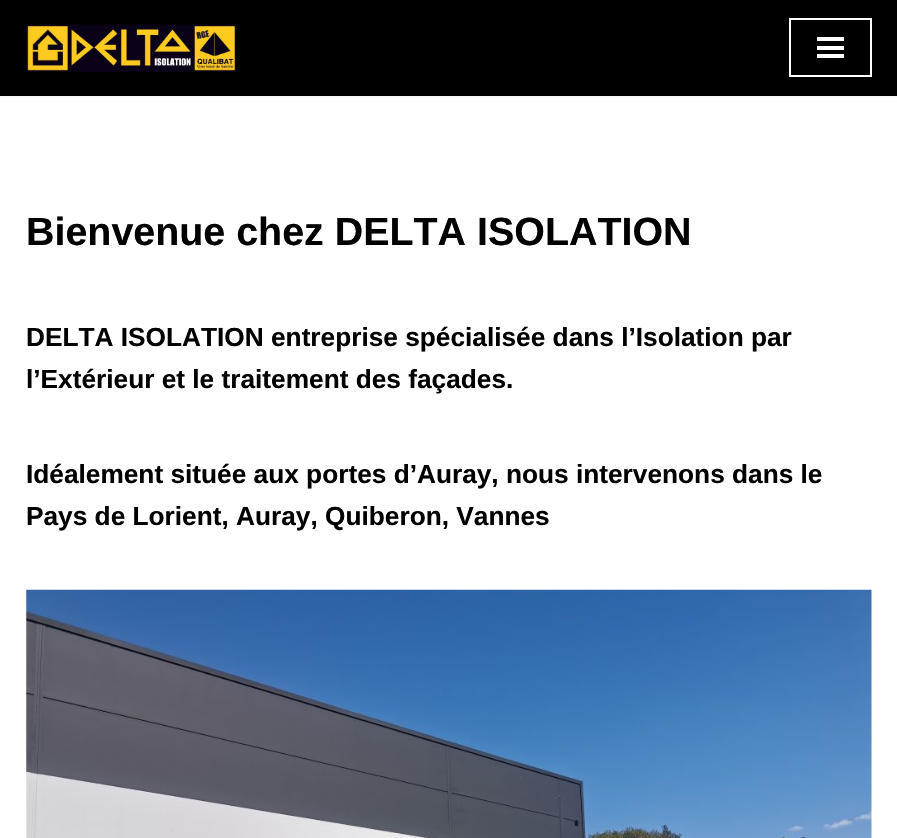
void draw(SkCanvas* c) {
SkPaint p;
p.setAntiAlias(true);
auto F=[&](const char* family, int weight, float size, bool italic = false){SkFontStyle style(weight, SkFontStyle::kNormal_Width,italic ? SkFontStyle::kItalic_Slant : SkFontStyle::kUpright_Slant);SkFont result(fontMgr->matchFamilyStyle(family, style), size);result.setSubpixel(true);return result;};
auto T=[&](const char* s, float x, float y, const SkFont& font){c->drawString(s, x, y, font, p);};
auto R=[&](float x, float y, float w, float h){c->drawRect(SkRect::MakeXYWH(x, y, w, h), p);};
auto I=[&](const char* path, float x, float y, float w, float h){auto image = SkImages::DeferredFromEncodedData(SkData::MakeFromFileName(path));c->drawImageRect(image, SkRect::MakeXYWH(x, y, w, h), SkSamplingOptions());};
c->clear(0xffffffff);
p.setColor(0x1a000000);
p.setMaskFilter(SkMaskFilter::MakeBlur(kNormal_SkBlurStyle, 2.5));
c->drawRect(SkRect::MakeXYWH(0,-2,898,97),p);
p.setMaskFilter(nullptr);
p.setColor(0xff000000);
R(0,0,897,96);
I("1.png",26,24,211,48);
p.setStroke(true);
p.setStrokeWidth(2);
p.setColor(0xffffffff);
c->drawRect(SkRect::MakeXYWH(790,19,81,57),p);
p.setStroke(false);
R(817,37,27,4);
R(817,46,27,4);
R(817,54,27,4);
auto f1 = F("Liberation Sans",700,39.4);
p.setColor(0xff000000);
T("Bienvenue chez DELTA ISOLATION",26,245,f1);
auto f2 = F("Liberation Sans",700,26.25);
T("DELTA ISOLATION entreprise spécialisée dans l’Isolation par",26,346,f2);
T("l’Extérieur et le traitement des façades.",26,388,f2);
T("Idéalement située aux portes d’Auray, nous intervenons dans le",26,483,f2);
T("Pays de Lorient, Auray, Quiberon, Vannes",26,525,f2);
I("2.png",26,589,846,249);
}
